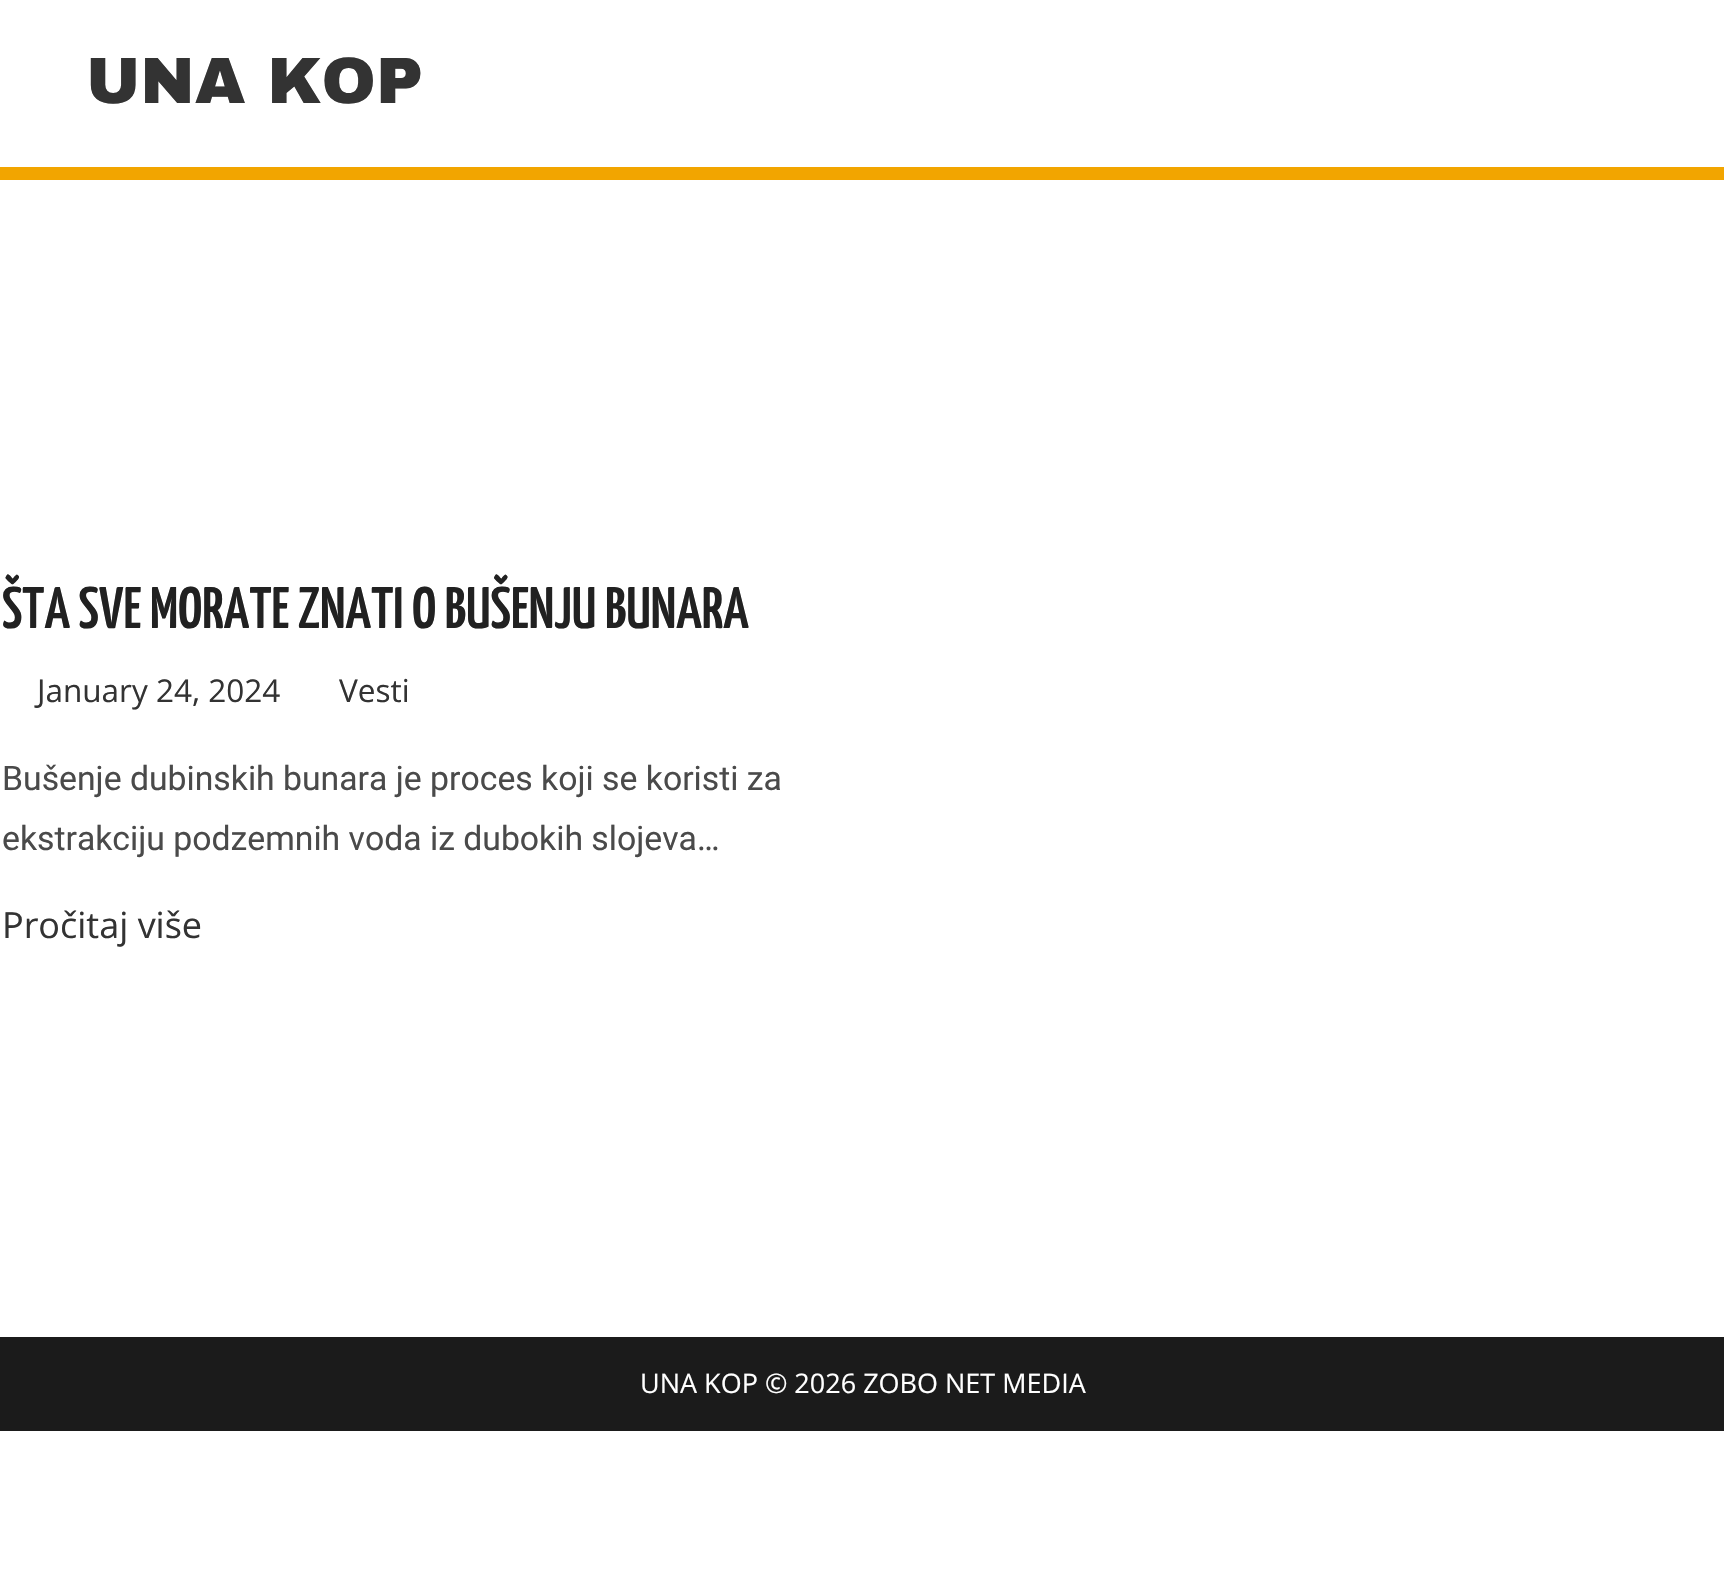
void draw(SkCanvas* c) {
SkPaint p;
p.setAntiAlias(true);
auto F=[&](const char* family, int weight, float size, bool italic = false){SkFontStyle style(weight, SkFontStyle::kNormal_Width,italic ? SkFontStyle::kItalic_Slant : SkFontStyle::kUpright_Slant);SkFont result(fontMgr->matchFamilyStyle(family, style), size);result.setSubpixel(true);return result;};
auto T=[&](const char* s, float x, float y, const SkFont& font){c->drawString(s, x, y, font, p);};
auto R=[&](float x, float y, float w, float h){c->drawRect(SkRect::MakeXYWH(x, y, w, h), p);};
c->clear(0xffffffff);
p.setColor(0xfff2a500);
R(0,167,1724,13);
auto f1 = F("Archivo Black",400,65.25);
p.setColor(0xff333333);
T("UNA KOP",86,103,f1);
auto f2 = F("Yanone Kaffeesatz",600,58.5);
p.setColor(0xff212121);
T("ŠTA SVE MORATE ZNATI O BUŠENJU BUNARA",2,628,f2);
auto f3 = F("Open Sans",400,31.5);
p.setColor(0xff333333);
T("January 24, 2024",37,702,f3);
T("Vesti",339,702,f3);
auto f4 = F("Roboto",400,33.75);
p.setColor(0xff4a4a4a);
T("Bušenje dubinskih bunara je proces koji se koristi za",2,790,f4);
T("ekstrakciju podzemnih voda iz dubokih slojeva…",2,850,f4);
auto f5 = F("Open Sans",400,36);
p.setColor(0xff333333);
T("Pročitaj više",2,938,f5);
p.setColor(0xff1b1b1b);
R(0,1337,1724,94);
auto f6 = F("Open Sans",400,27);
p.setColor(0xffffffff);
T("UNA KOP © 2026 ZOBO NET MEDIA",640,1393,f6);
}
